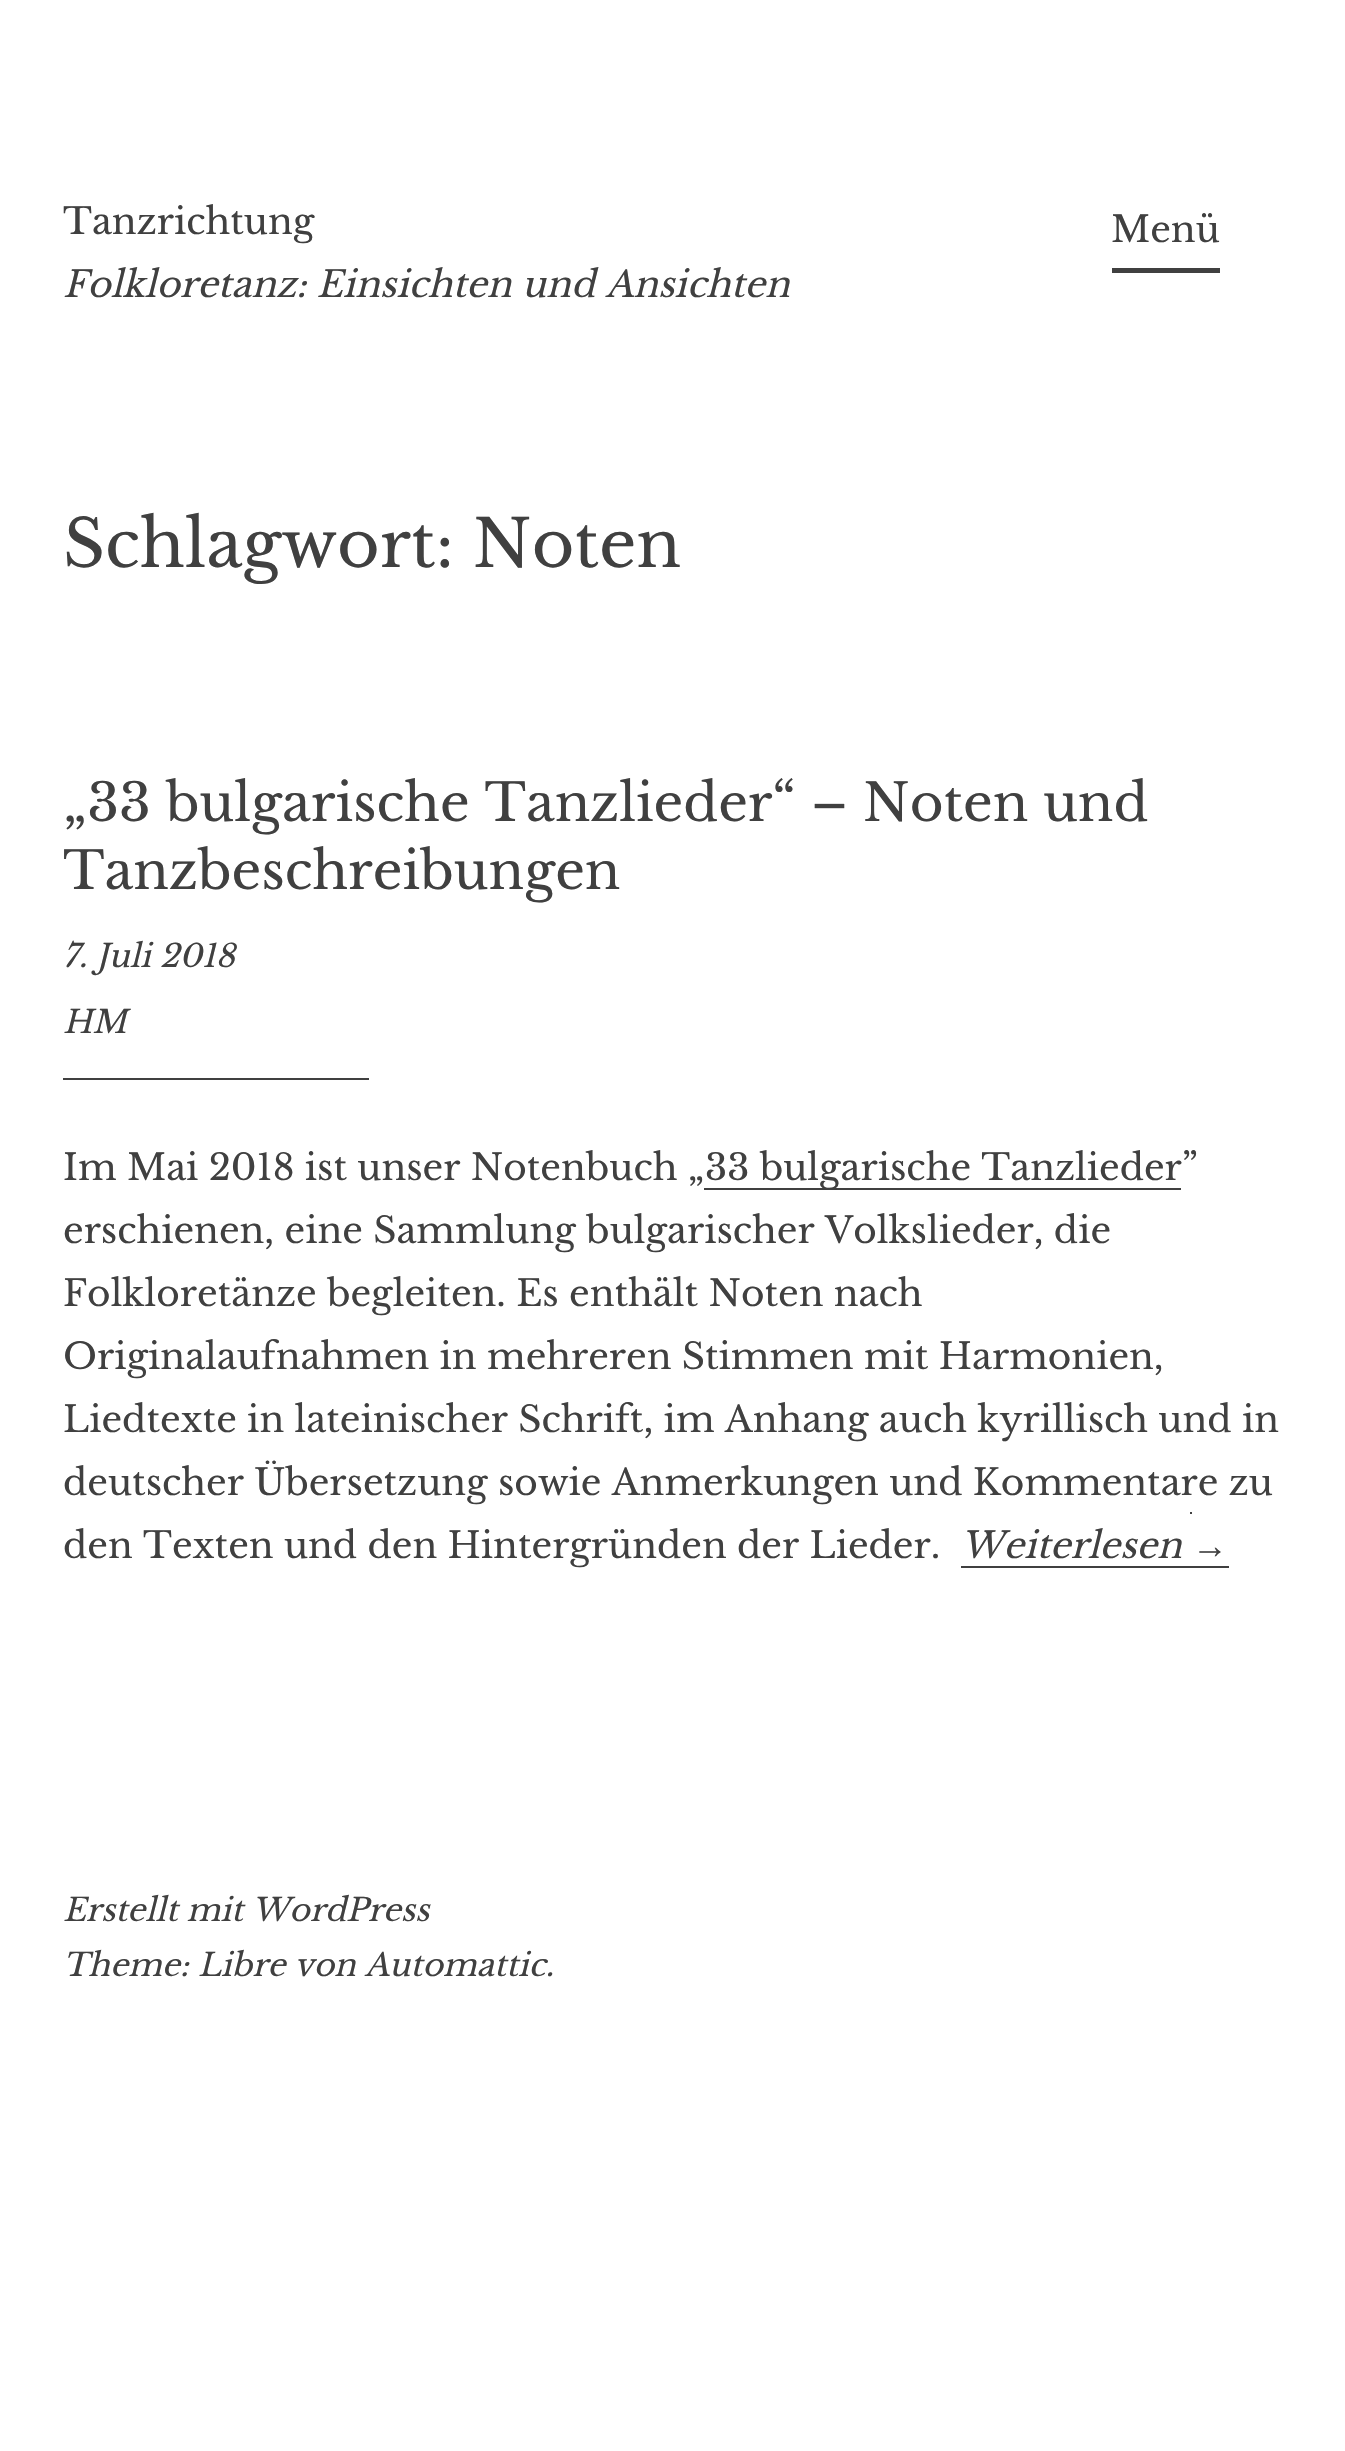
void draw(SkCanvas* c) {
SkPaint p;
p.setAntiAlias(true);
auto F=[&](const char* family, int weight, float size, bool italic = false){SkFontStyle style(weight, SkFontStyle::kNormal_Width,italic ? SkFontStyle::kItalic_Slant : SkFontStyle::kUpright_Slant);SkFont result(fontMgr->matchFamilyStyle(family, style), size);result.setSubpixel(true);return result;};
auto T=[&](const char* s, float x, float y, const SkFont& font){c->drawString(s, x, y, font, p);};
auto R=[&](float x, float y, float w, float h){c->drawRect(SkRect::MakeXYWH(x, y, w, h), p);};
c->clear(0xffffffff);
auto f1 = F("Libre Baskerville",400,36);
p.setColor(0xff404040);
T("Tanzrichtung",63,234,f1);
auto f2 = F("Libre Baskerville",400,36,true);
T("Folkloretanz: Einsichten und Ansichten",63,297,f2);
R(1112,268,108,5);
T("Menü",1111,242,f1);
auto f3 = F("Libre Baskerville",400,65.25);
T("Schlagwort: Noten",63,567,f3);
auto f4 = F("Libre Baskerville",400,51.75);
T("„33 bulgarische Tanzlieder“ – Noten und",63,821,f4);
T("Tanzbeschreibungen",63,889,f4);
auto f5 = F("Libre Baskerville",400,31.5,true);
T("7. Juli 2018",63,967,f5);
T("HM",63,1033,f5);
R(63,1078,306,2);
T("Im Mai 2018 ist unser Notenbuch „",63,1180,f1);
R(704,1188,477,2);
T("33 bulgarische Tanzlieder”",705,1180,f1);
T("erschienen, eine Sammlung bulgarischer Volkslieder, die",63,1243,f1);
T("Folkloretänze begleiten. Es enthält Noten nach",63,1306,f1);
T("Originalaufnahmen in mehreren Stimmen mit Harmonien,",63,1369,f1);
T("Liedtexte in lateinischer Schrift, im Anhang auch kyrillisch und in",63,1432,f1);
T("deutscher Übersetzung sowie Anmerkungen und Kommentare zu",63,1495,f1);
T("den Texten und den Hintergründen der Lieder.",63,1558,f1);
T("Weiterlesen",961,1558,f2);
R(1190,1512,2,2);
auto f6 = F("Liberation Serif",400,36,true);
T("→",1192,1558,f6);
R(961,1566,268,2);
T("Erstellt mit WordPress",63,1921,f5);
T("Theme: Libre von Automattic.",63,1976,f5);
}
